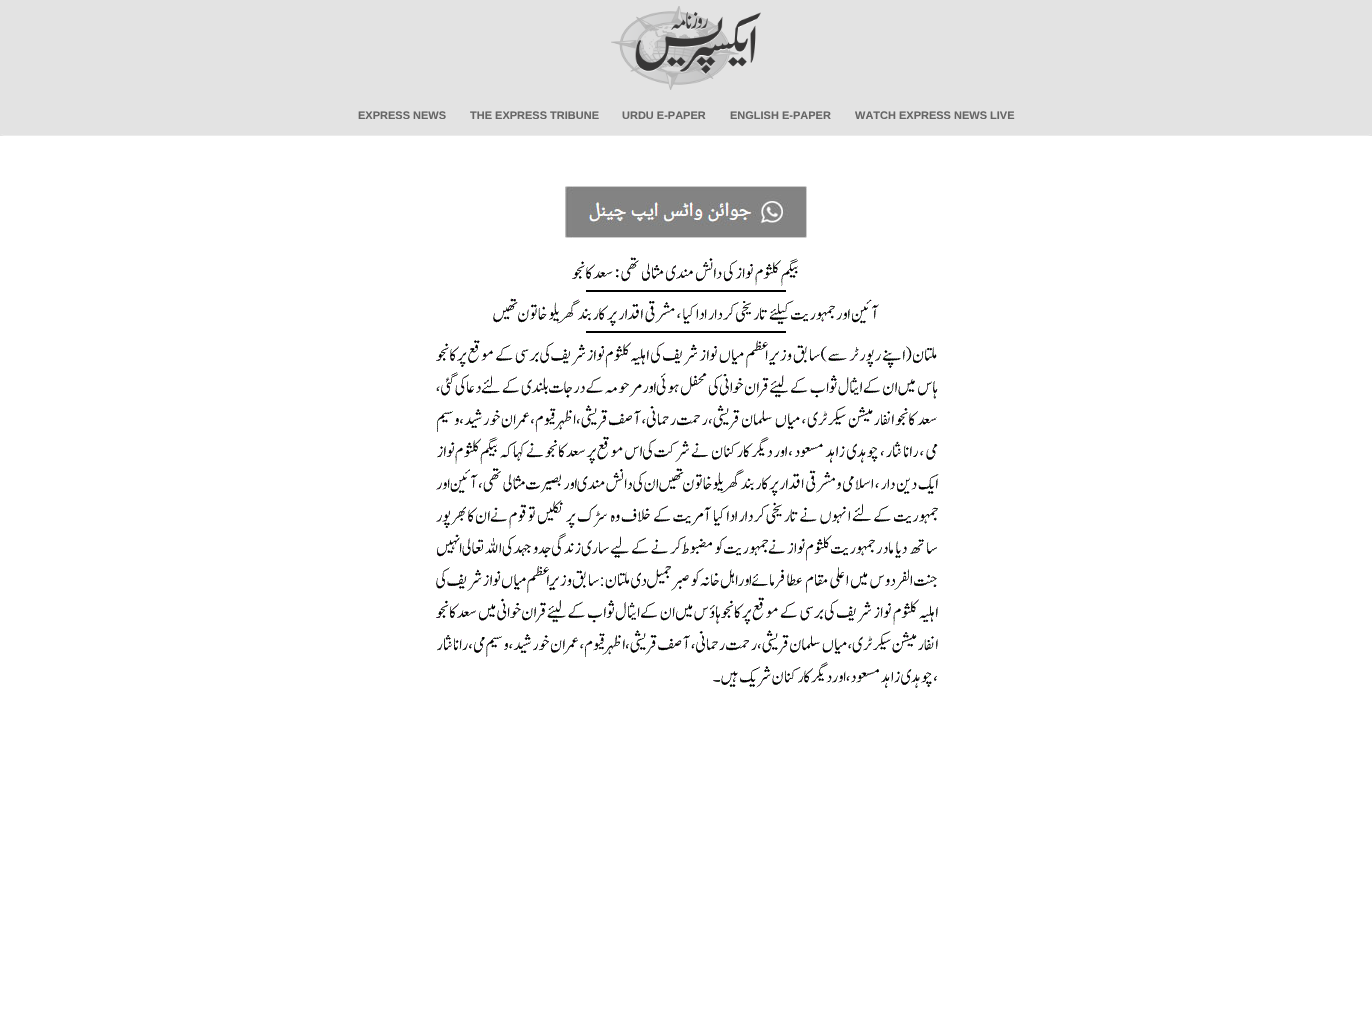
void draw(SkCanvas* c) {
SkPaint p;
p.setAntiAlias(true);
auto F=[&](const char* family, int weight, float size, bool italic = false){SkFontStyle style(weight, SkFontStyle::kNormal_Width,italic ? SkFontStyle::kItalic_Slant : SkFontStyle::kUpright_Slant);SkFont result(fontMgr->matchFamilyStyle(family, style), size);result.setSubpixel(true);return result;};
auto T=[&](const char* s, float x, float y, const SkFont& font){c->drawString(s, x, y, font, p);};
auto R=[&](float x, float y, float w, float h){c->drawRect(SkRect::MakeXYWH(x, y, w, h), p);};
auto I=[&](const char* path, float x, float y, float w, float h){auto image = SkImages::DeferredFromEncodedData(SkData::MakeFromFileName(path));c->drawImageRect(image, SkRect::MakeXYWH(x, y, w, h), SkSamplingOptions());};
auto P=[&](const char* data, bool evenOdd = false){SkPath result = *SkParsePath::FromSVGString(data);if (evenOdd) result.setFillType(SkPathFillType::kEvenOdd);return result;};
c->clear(0xffffffff);
p.setColor(0xffe3e3e3);
R(0,0,1372,136);
p.setStroke(true);
p.setStrokeWidth(1);
p.setColor(0xffececec);
c->drawPath(P("M1370.5 134.5l-2.5 1h-1364l-2.5-1"),p);
I("1.png",611,6,150,84);
auto f1 = F("Liberation Sans",700,11);
p.setStroke(false);
p.setColor(0xff666666);
T("EXPRESS NEWS",358,119,f1);
T("THE EXPRESS TRIBUNE",470,119,f1);
T("URDU E-PAPER",622,119,f1);
T("ENGLISH E-PAPER",730,119,f1);
T("WATCH EXPRESS NEWS LIVE",855,119,f1);
I("2.png",565,186,242,52);
I("3.png",436,257,503,431);
}
